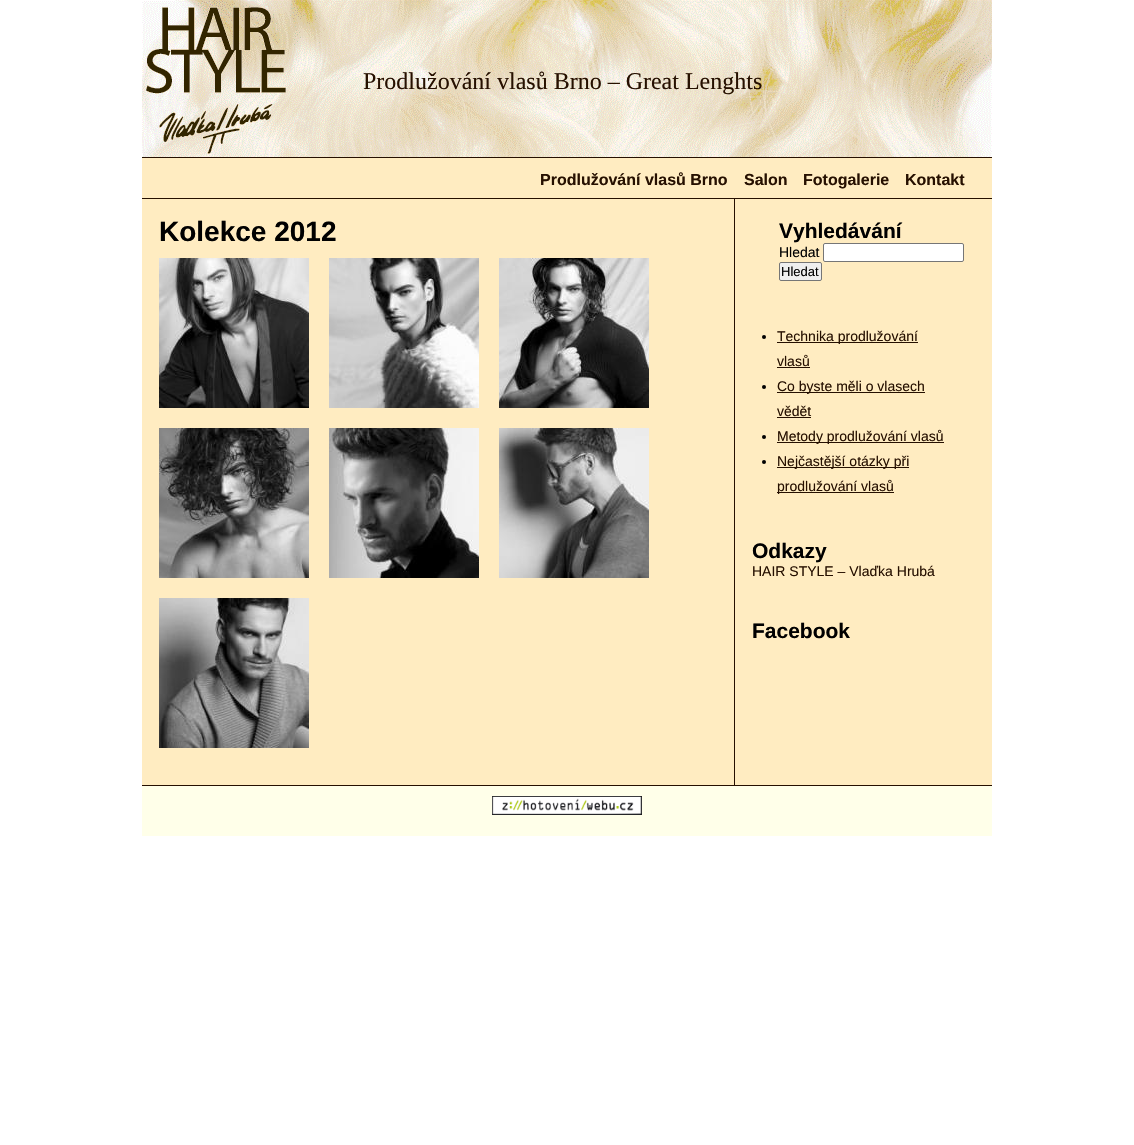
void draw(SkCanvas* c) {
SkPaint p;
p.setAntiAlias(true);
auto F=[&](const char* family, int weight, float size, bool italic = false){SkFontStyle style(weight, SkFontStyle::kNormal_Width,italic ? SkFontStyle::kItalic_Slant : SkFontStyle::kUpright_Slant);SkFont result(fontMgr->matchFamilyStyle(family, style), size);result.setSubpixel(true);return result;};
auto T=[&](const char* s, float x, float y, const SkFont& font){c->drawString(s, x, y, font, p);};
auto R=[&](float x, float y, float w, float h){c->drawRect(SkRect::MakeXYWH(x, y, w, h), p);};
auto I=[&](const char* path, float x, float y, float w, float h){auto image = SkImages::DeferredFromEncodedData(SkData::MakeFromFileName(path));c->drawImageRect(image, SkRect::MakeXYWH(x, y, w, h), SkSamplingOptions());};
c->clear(0xffffffff);
p.setColor(0xffffecc1);
R(142,158,850,627);
I("1.png",142,0,850,157);
p.setColor(0xff261000);
R(142,157,850,1);
I("2.png",146,7,140,147);
auto f1 = F("Liberation Serif",400,24);
T("Prodlužování vlasů Brno – Great Lenghts",363,89,f1);
R(142,198,850,1);
auto f2 = F("Liberation Sans",700,16);
T("Prodlužování vlasů Brno",540,185,f2);
T("Salon",744,185,f2);
T("Fotogalerie",803,185,f2);
T("Kontakt",905,185,f2);
R(734,199,1,587);
auto f3 = F("Liberation Sans",700,28);
p.setColor(0xff000000);
T("Kolekce 2012",159,241,f3);
I("3.png",159,258,150,150);
I("4.png",329,258,150,150);
I("5.png",499,258,150,150);
I("6.png",159,428,150,150);
I("7.png",329,428,150,150);
I("8.png",499,428,150,150);
I("9.png",159,598,150,150);
auto f4 = F("Liberation Sans",700,21);
T("Vyhledávání",779,238,f4);
auto f5 = F("Liberation Sans",400,14);
T("Hledat",779,257,f5);
p.setColor(0xffffffff);
c->drawRoundRect(SkRect::MakeXYWH(823.5,243.5,140,18),1.5,1.5,p);
p.setStroke(true);
p.setStrokeWidth(1);
p.setColor(0xff767676);
c->drawRoundRect(SkRect::MakeXYWH(823.5,243.5,140,18),1.5,1.5,p);
p.setStroke(false);
p.setColor(0xffefefef);
c->drawRoundRect(SkRect::MakeXYWH(779.5,262.5,42,18),1.5,1.5,p);
p.setStroke(true);
p.setColor(0xff767676);
c->drawRoundRect(SkRect::MakeXYWH(779.5,262.5,42,18),1.5,1.5,p);
auto f6 = F("Liberation Sans",400,13);
p.setStroke(false);
p.setColor(0xff000000);
T("Hledat",781,276,f6);
c->drawCircle(764,337,2,p);
p.setColor(0xff261000);
R(777,342,141,1);
T("Technika prodlužování",777,341,f5);
T("vlasů",777,366,f5);
R(777,367,33,1);
p.setColor(0xff000000);
c->drawCircle(764,387,2,p);
p.setColor(0xff261000);
R(777,392,148,1);
T("Co byste měli o vlasech",777,391,f5);
T("vědět",777,416,f5);
R(777,417,34,1);
p.setColor(0xff000000);
c->drawCircle(764,437,2,p);
p.setColor(0xff261000);
R(777,442,167,1);
T("Metody prodlužování vlasů",777,441,f5);
p.setColor(0xff000000);
c->drawCircle(764,462,2,p);
p.setColor(0xff261000);
R(777,467,132,1);
T("Nejčastější otázky při",777,466,f5);
R(777,492,117,1);
T("prodlužování vlasů",777,491,f5);
p.setColor(0xff000000);
T("Odkazy",752,558,f4);
p.setColor(0xff261000);
T("HAIR STYLE – Vlaďka Hrubá",752,576,f5);
p.setColor(0xff000000);
T("Facebook",752,638,f4);
p.setColor(0xffffffe9);
R(142,786,850,50);
p.setColor(0xff261000);
R(142,785,850,1);
I("10.png",492,796,150,19);
}
